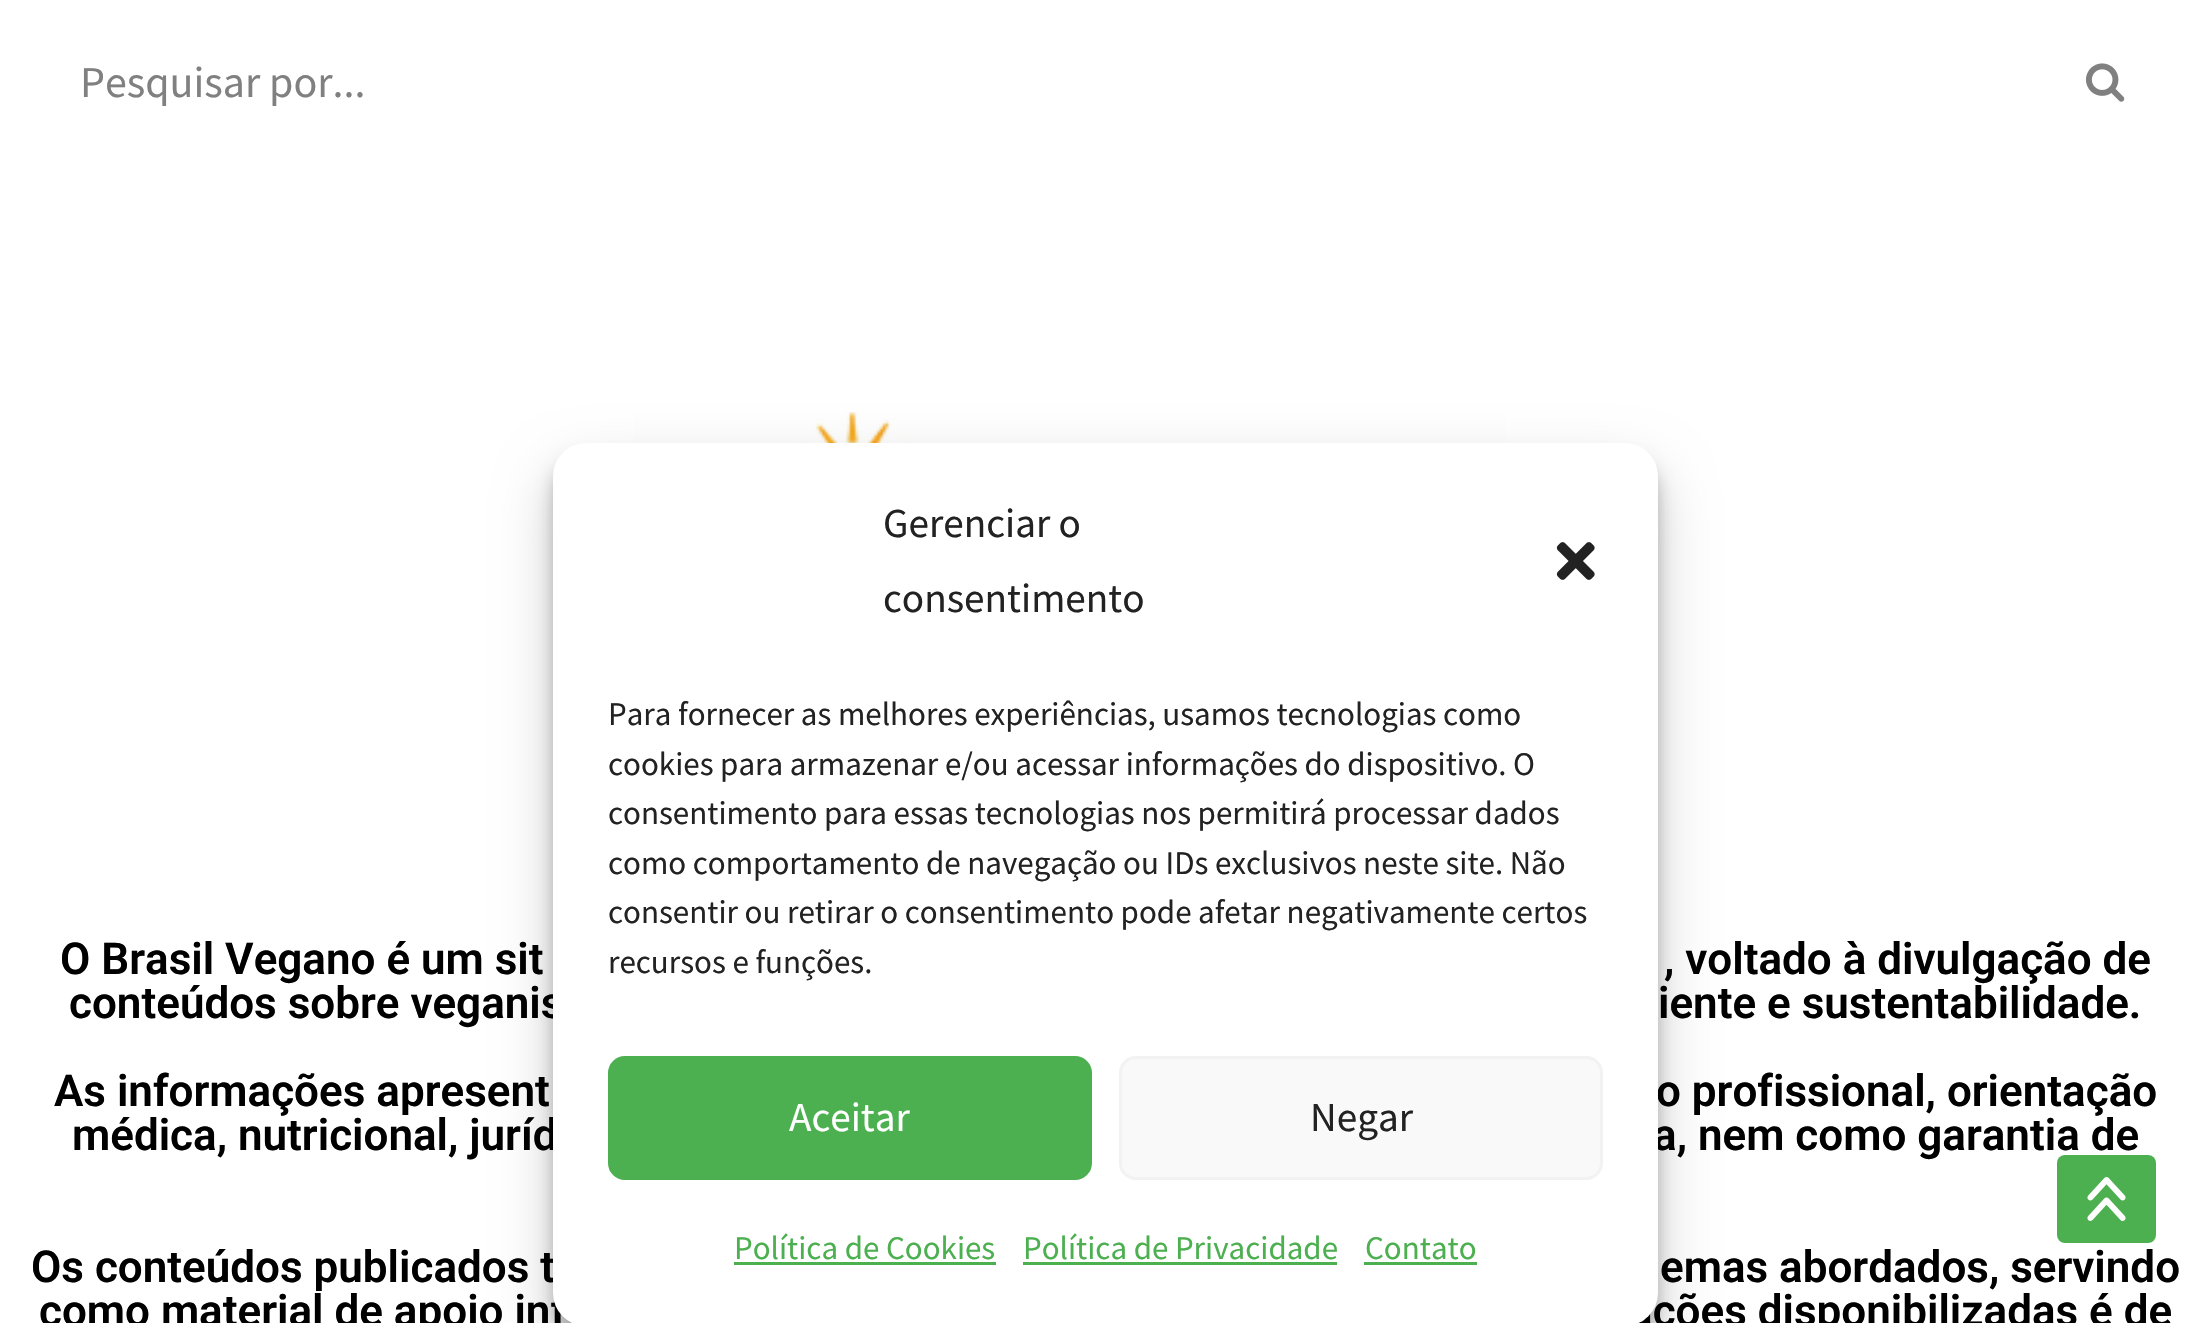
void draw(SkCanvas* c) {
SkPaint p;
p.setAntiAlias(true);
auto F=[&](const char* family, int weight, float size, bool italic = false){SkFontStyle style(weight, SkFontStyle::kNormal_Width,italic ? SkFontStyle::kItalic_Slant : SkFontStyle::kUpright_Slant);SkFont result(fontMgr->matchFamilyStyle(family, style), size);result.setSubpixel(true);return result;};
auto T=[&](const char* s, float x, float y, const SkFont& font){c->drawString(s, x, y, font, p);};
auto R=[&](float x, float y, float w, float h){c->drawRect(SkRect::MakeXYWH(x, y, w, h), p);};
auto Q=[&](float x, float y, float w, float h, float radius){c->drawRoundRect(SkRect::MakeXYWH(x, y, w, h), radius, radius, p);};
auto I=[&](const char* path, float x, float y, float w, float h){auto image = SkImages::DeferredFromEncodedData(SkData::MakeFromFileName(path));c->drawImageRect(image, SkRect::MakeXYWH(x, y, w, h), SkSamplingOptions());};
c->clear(0xffffffff);
auto f1 = F("Source Sans Pro",400,44);
p.setColor(0xff808080);
T("Pesquisar por...",80,97,f1);
I("1.png",2086,63,39,39);
I("2.png",634,412,872,31);
auto f2 = F("Roboto",600,44);
p.setColor(0xff000000);
T("O Brasil Vegano é um sit",60,974,f2);
T(", voltado à divulgação de",1664,974,f2);
T("conteúdos sobre veganis",69,1018,f2);
T("iente e sustentabilidade.",1658,1018,f2);
T("As informações apresent",54,1106,f2);
T("o profissional, orientação",1656,1106,f2);
T("médica, nutricional, juríd",72,1150,f2);
T("a, nem como garantia de",1653,1150,f2);
T("Os conteúdos publicados t",31,1282,f2);
T("emas abordados, servindo",1660,1282,f2);
T("como material de apoio inf",39,1326,f2);
T("ações disponibilizadas é de",1629,1326,f2);
p.setColor(0xff4caf50);
Q(2057,1155,99,88,8);
I("3.png",2087,1177,39,44);
p.setColor(0x3b000000);
p.setMaskFilter(SkMaskFilter::MakeBlur(kNormal_SkBlurStyle, 8));
c->drawRoundRect(SkRect::MakeXYWH(553,459,1105,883),33,33,p);
p.setMaskFilter(nullptr);
p.setColor(0x30000000);
p.setMaskFilter(SkMaskFilter::MakeBlur(kNormal_SkBlurStyle, 27.5));
c->drawRoundRect(SkRect::MakeXYWH(553,470,1105,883),33,33,p);
p.setMaskFilter(nullptr);
p.setColor(0xffffffff);
Q(553,443,1105,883,33);
auto f3 = F("Source Sans Pro",400,41.25);
p.setColor(0xff222222);
T("Gerenciar o",883,537,f3);
T("consentimento",883,612,f3);
I("4.png",1556,542,39,38);
auto f4 = F("Source Sans Pro",400,33);
T("Para fornecer as melhores experiências, usamos tecnologias como",608,725,f4);
T("cookies para armazenar e/ou acessar informações do dispositivo. O",608,775,f4);
T("consentimento para essas tecnologias nos permitirá processar dados",608,824,f4);
T("como comportamento de navegação ou IDs exclusivos neste site. Não",608,874,f4);
T("consentir ou retirar o consentimento pode afetar negativamente certos",608,923,f4);
T("recursos e funções.",608,973,f4);
p.setColor(0xff4caf50);
c->drawRoundRect(SkRect::MakeXYWH(609.5,1057.5,481,121),15.5,15.5,p);
p.setStroke(true);
p.setStrokeWidth(3);
c->drawRoundRect(SkRect::MakeXYWH(609.5,1057.5,481,121),15.5,15.5,p);
p.setStroke(false);
p.setColor(0xffffffff);
T("Aceitar",789,1131,f3);
p.setColor(0xfff9f9f9);
c->drawRoundRect(SkRect::MakeXYWH(1120.5,1057.5,481,121),15.5,15.5,p);
p.setStroke(true);
p.setColor(0xfff2f2f2);
c->drawRoundRect(SkRect::MakeXYWH(1120.5,1057.5,481,121),15.5,15.5,p);
p.setStroke(false);
p.setColor(0xff222222);
T("Negar",1310,1131,f3);
p.setColor(0xff4caf50);
T("Política de Cookies",734,1259,f4);
R(734,1262,262,3);
T("Política de Privacidade",1023,1259,f4);
R(1023,1262,314,3);
T("Contato",1365,1259,f4);
R(1364,1262,113,3);
}
